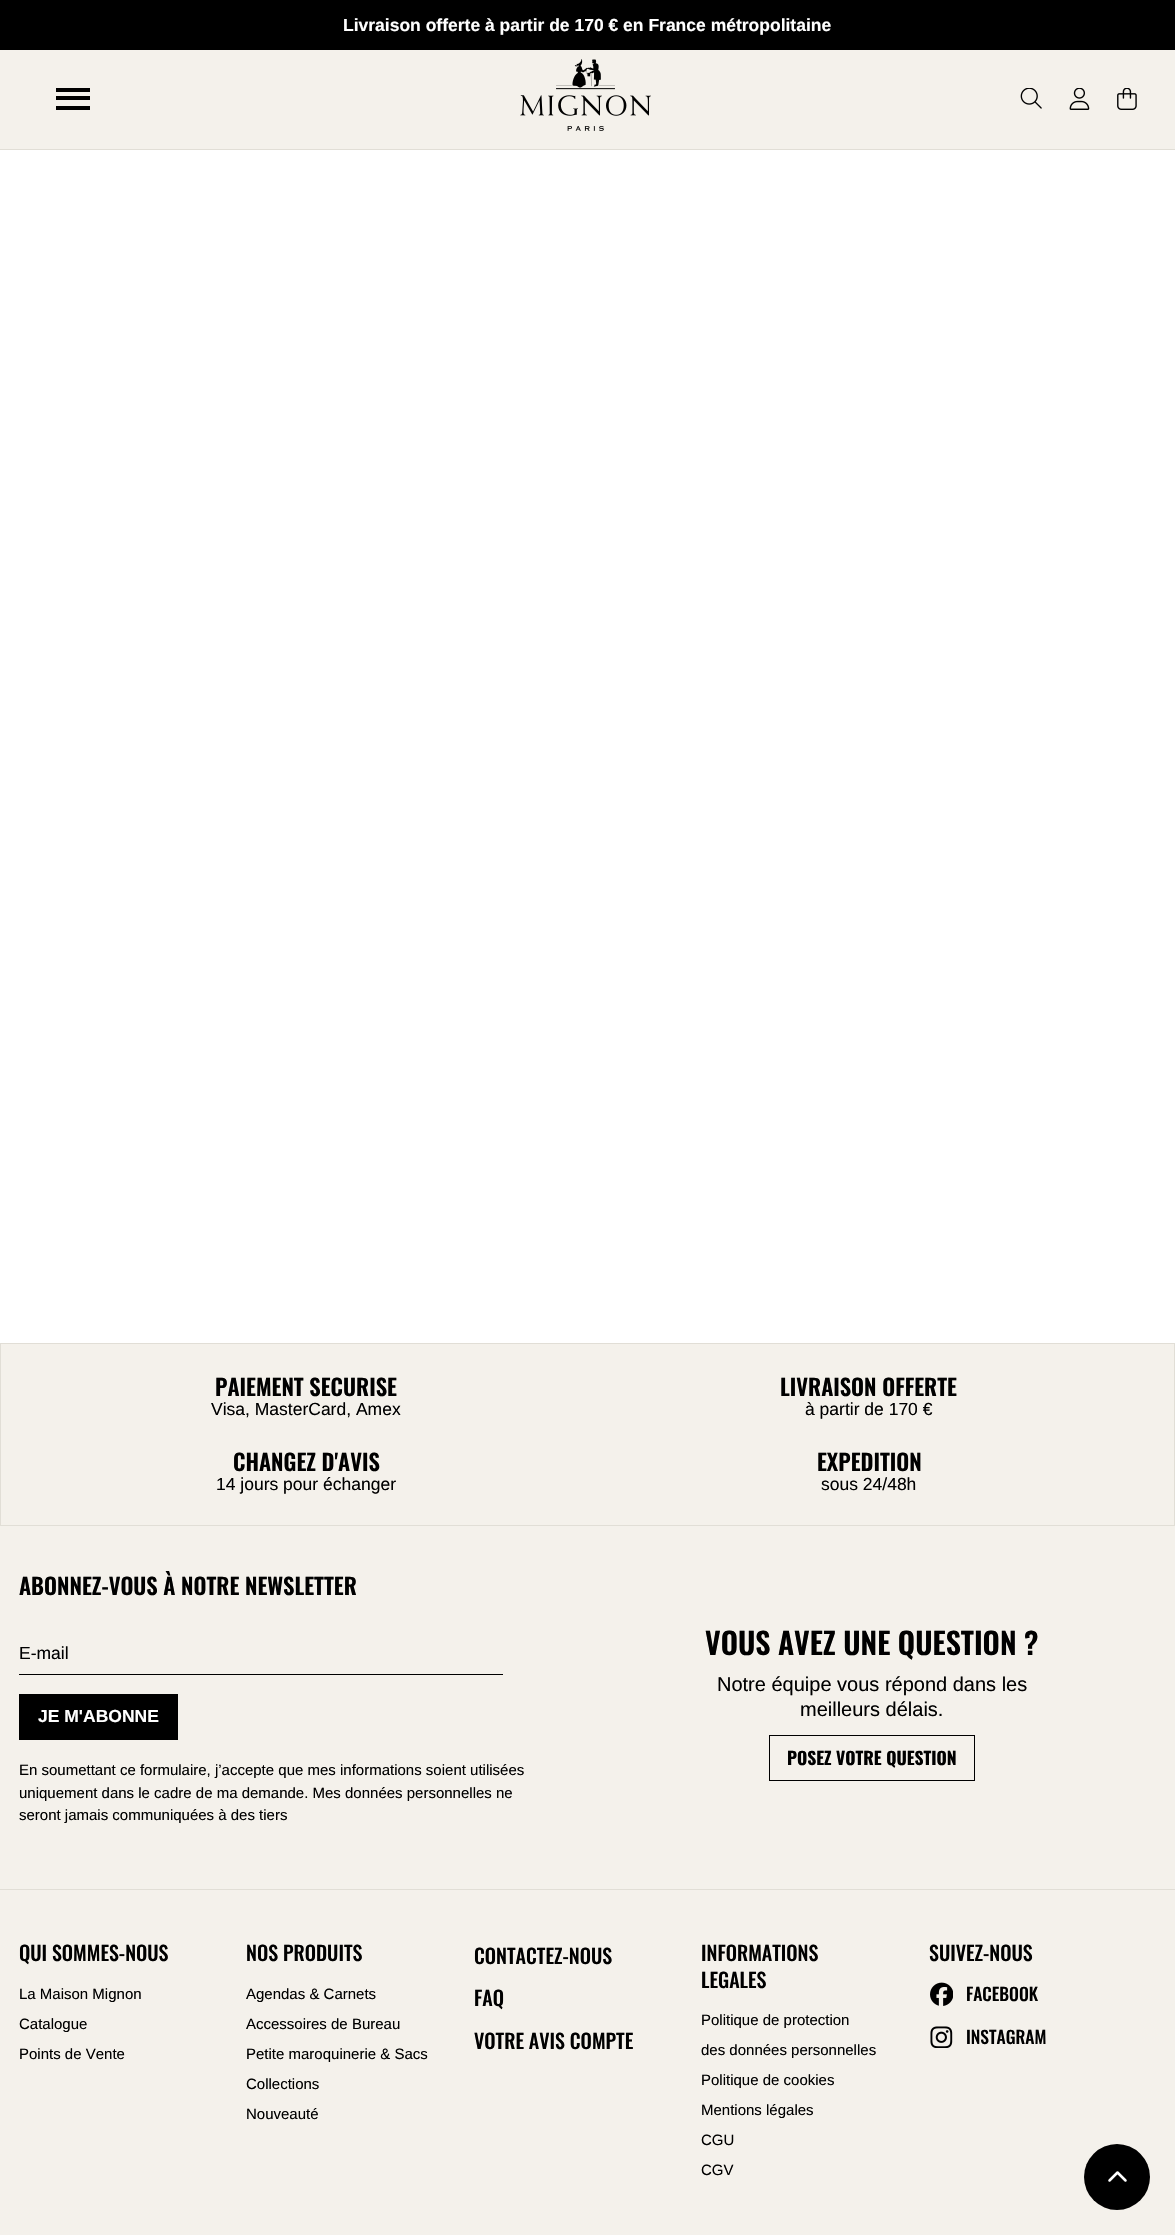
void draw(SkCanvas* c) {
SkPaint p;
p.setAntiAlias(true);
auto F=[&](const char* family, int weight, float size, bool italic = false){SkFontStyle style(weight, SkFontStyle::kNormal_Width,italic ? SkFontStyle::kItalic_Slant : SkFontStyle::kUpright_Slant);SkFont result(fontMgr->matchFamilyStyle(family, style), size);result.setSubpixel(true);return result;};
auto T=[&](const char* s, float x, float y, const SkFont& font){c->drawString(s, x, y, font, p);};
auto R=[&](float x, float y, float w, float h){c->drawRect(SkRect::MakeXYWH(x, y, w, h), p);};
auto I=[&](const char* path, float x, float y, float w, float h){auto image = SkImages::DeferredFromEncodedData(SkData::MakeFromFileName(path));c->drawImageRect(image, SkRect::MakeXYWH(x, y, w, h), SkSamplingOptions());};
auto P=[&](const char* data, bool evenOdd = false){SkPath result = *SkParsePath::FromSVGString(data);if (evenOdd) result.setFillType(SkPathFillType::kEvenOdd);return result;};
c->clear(0xffffffff);
p.setColor(0xff000000);
R(0,0,1175,50);
auto f1 = F("Liberation Sans",700,17.5);
p.setColor(0xffffffff);
T("Livraison offerte à partir de 170 € en France métropolitaine",343,31,f1);
p.setColor(0xfff4f1eb);
R(0,50,1175,99);
p.setColor(0xffe1ded6);
R(0,149,1175,1);
p.setColor(0xff000000);
R(56,96,34,4);
R(56,88,34,4);
R(56,106,34,4);
I("1.png",520,59,131,72);
I("2.png",1020,88,22,21);
I("3.png",1069,88,21,22);
I("4.png",1117,88,20,22);
p.setColor(0xfff4f1eb);
c->drawRect(SkRect::MakeXYWH(.5,1343.5,1174,182),p);
p.setStroke(true);
p.setStrokeWidth(1);
p.setColor(0xffe1ded6);
c->drawRect(SkRect::MakeXYWH(.5,1343.5,1174,182),p);
auto f2 = F("Oswald",600,22.5);
p.setStroke(false);
p.setColor(0xff000000);
T("PAIEMENT SECURISE",215,1396,f2);
auto f3 = F("Liberation Sans",400,17.5);
T("Visa, MasterCard, Amex",211,1415,f3);
T("LIVRAISON OFFERTE",780,1396,f2);
T("à partir de 170 €",805,1415,f3);
T("CHANGEZ D'AVIS",233,1471,f2);
T("14 jours pour échanger",216,1490,f3);
T("EXPEDITION",817,1471,f2);
T("sous 24/48h",821,1490,f3);
p.setColor(0xfff4f1eb);
R(0,1526,1175,363);
p.setColor(0xffe1ded6);
R(0,1889,1175,1);
p.setColor(0xff000000);
T("ABONNEZ-VOUS À NOTRE NEWSLETTER",19,1595,f2);
R(19,1674,484,1);
T("E-mail",19,1659,f3);
R(19,1694,159,46);
p.setColor(0xffffffff);
T("JE M'ABONNE",38,1722,f1);
auto f4 = F("Liberation Sans",400,15);
p.setColor(0xff000000);
T("En soumettant ce formulaire, j’accepte que mes informations soient utilisées",19,1775,f4);
T("uniquement dans le cadre de ma demande. Mes données personnelles ne",19,1798,f4);
T("seront jamais communiquées à des tiers",19,1820,f4);
auto f5 = F("Oswald",600,30);
T("VOUS AVEZ UNE QUESTION ?",705,1655,f5);
auto f6 = F("Liberation Sans",400,20);
T("Notre équipe vous répond dans les",717,1691,f6);
T("meilleurs délais.",800,1716,f6);
p.setStroke(true);
c->drawRect(SkRect::MakeXYWH(769.5,1735.5,205,45),p);
auto f7 = F("Oswald",700,17.5);
p.setStroke(false);
T("POSEZ VOTRE QUESTION",787,1765,f7);
p.setColor(0xfff4f1eb);
R(0,1890,1175,345);
auto f8 = F("Oswald",500,20);
p.setColor(0xff000000);
T("QUI SOMMES-NOUS",19,1961,f8);
T("La Maison Mignon",19,1999,f4);
T("Catalogue",19,2029,f4);
T("Points de Vente",19,2059,f4);
T("NOS PRODUITS",246,1961,f8);
T("Agendas & Carnets",246,1999,f4);
T("Accessoires de Bureau",246,2029,f4);
T("Petite maroquinerie & Sacs",246,2059,f4);
T("Collections",246,2089,f4);
T("Nouveauté",246,2119,f4);
T("CONTACTEZ-NOUS",474,1964,f8);
T("FAQ",474,2006,f8);
T("VOTRE AVIS COMPTE",474,2049,f8);
T("INFORMATIONS",701,1961,f8);
T("LEGALES",701,1988,f8);
T("Politique de protection",701,2025,f4);
T("des données personnelles",701,2055,f4);
T("Politique de cookies",701,2085,f4);
T("Mentions légales",701,2115,f4);
T("CGU",701,2145,f4);
T("CGV",701,2175,f4);
T("SUIVEZ-NOUS",929,1961,f8);
I("5.png",930,1982,23,24);
auto f9 = F("Oswald",500,17.5);
T("FACEBOOK",966,2001,f9);
I("6.png",930,2026,23,22);
T("INSTAGRAM",966,2044,f9);
c->drawCircle(1117,2177,33,p);
p.setStroke(true);
p.setStrokeWidth(2.5);
p.setStrokeCap(SkPaint::kRound_Cap);
p.setStrokeJoin(SkPaint::kRound_Join);
p.setColor(0xffffffff);
c->drawPath(P("M1125.5 2180.5l-8-8l-8 8"),p);
}
